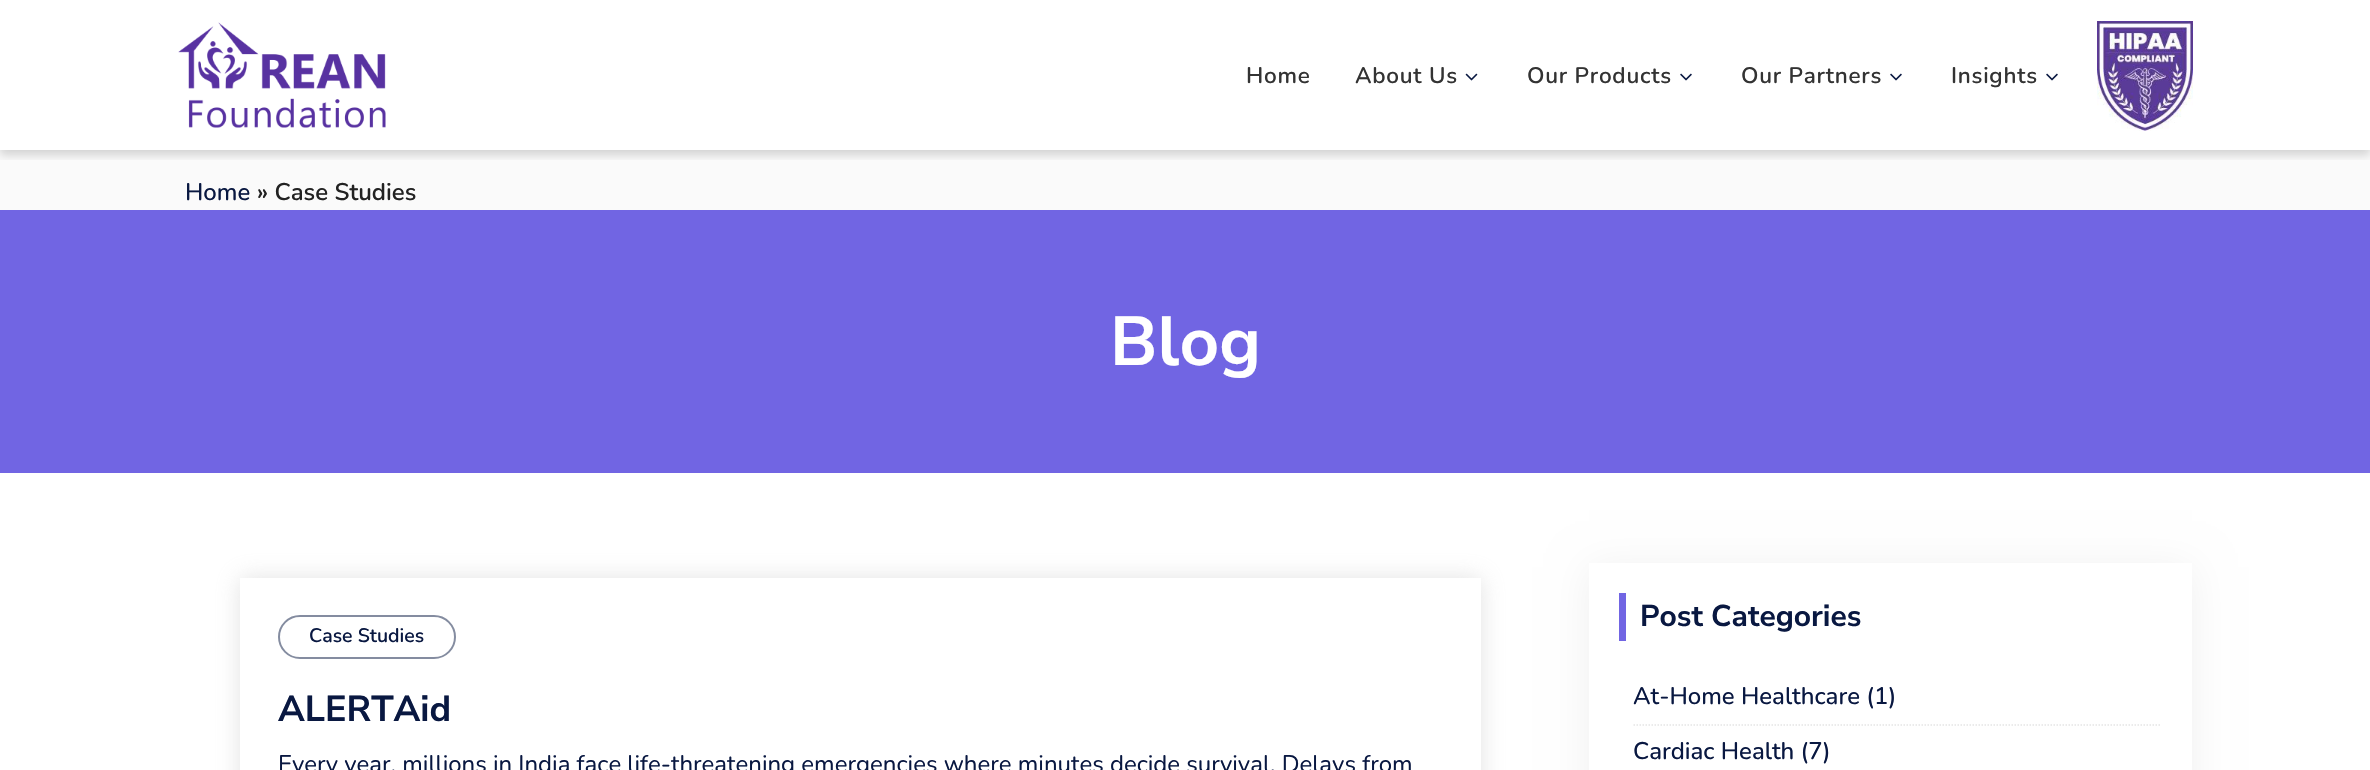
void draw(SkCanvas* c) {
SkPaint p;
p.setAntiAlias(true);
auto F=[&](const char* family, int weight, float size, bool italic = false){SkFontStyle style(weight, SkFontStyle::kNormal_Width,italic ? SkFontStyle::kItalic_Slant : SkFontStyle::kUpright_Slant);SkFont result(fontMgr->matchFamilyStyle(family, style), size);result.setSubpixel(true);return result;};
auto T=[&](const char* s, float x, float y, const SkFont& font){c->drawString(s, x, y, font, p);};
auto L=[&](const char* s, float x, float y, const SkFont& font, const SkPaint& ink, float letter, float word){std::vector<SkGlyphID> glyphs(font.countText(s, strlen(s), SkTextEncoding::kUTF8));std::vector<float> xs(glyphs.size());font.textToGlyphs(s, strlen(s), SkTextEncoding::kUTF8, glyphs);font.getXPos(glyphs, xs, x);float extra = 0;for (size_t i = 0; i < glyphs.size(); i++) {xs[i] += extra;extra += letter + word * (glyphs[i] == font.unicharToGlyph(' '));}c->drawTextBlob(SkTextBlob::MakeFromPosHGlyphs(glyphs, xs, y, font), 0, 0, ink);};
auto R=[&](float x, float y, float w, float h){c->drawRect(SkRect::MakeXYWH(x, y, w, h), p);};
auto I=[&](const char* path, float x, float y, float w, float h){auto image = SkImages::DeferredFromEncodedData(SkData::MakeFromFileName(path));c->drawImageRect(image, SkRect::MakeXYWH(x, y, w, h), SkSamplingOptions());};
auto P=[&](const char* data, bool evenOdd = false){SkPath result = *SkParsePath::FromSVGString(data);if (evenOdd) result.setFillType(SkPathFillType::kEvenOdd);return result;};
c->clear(0xffffffff);
p.setColor(0xfffafafa);
R(0,150,2370,60);
c->save();
c->clipRect(SkRect::MakeXYWH(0,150,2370,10));
p.setColor(0x29000000);
p.setMaskFilter(SkMaskFilter::MakeBlur(kNormal_SkBlurStyle, 4.5));
c->drawRect(SkRect::MakeXYWH(0,5,2370,150),p);
p.setMaskFilter(nullptr);
c->restore();
I("1.png",178,22,208,106);
auto f1 = F("Nunito",600,22.5);
p.setColor(0xff333333);
L("Home",1246,83,f1,p,.75,0);
L("About Us",1355,83,f1,p,.75,0);
I("2.png",1465,73,13,8);
L("Our Products",1527,83,f1,p,.75,0);
I("3.png",1680,73,12,8);
L("Our Partners",1741,83,f1,p,.75,0);
I("3.png",1890,73,12,8);
L("Insights",1951,83,f1,p,.75,0);
I("3.png",2046,73,12,8);
I("4.png",2097,21,96,110);
auto f2 = F("Nunito",500,24);
p.setColor(0xff091841);
T("Home",185,200,f2);
auto f3 = F("Nunito",600,24);
p.setColor(0xff222222);
T("» Case Studies",257,200,f3);
p.setColor(0xff7165e3);
R(0,210,2370,263);
auto f4 = F("Nunito Sans",700,69);
p.setColor(0xffffffff);
T("Blog",1110,365,f4);
p.setColor(0x70bebebe);
p.setMaskFilter(SkMaskFilter::MakeBlur(kNormal_SkBlurStyle, 11));
c->drawRect(SkRect::MakeXYWH(240,578,1241,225),p);
p.setMaskFilter(nullptr);
p.setColor(0xffffffff);
R(240,578,1241,192);
p.setStroke(true);
p.setStrokeWidth(2);
p.setColor(0xff848ca0);
c->drawRoundRect(SkRect::MakeXYWH(279,616,176,42),21,21,p);
auto f5 = F("Nunito",600,19.5);
p.setStroke(false);
p.setColor(0xff091841);
T("Case Studies",309,642,f5);
auto f6 = F("Nunito Sans",700,36);
T("ALERTAid",278,721,f6);
auto f7 = F("Nunito",400,24);
T("Every year, millions in India face life-threatening emergencies where minutes decide survival. Delays from",278,772,f7);
p.setColor(0x0f000000);
p.setMaskFilter(SkMaskFilter::MakeBlur(kNormal_SkBlurStyle, 19));
c->drawRect(SkRect::MakeXYWH(1589,567,603,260),p);
p.setMaskFilter(nullptr);
p.setColor(0xffffffff);
R(1589,563,603,207);
p.setColor(0xff7165e3);
R(1619,593,7,48);
auto f8 = F("Nunito Sans",700,30);
p.setColor(0xff091841);
T("Post Categories",1640,626,f8);
p.setStroke(true);
p.setStrokeWidth(1.5);
p.setColor(0xffe5e5e5);
p.setPathEffect(SkDashPathEffect::Make({{1.5f,1.5f}}, 0));
c->drawPath(P("M1633.5 725h528"),p);
p.setPathEffect(nullptr);
p.setStroke(false);
p.setColor(0xff091841);
T("At-Home Healthcare (1)",1633,704,f2);
T("Cardiac Health (7)",1633,759,f2);
}
